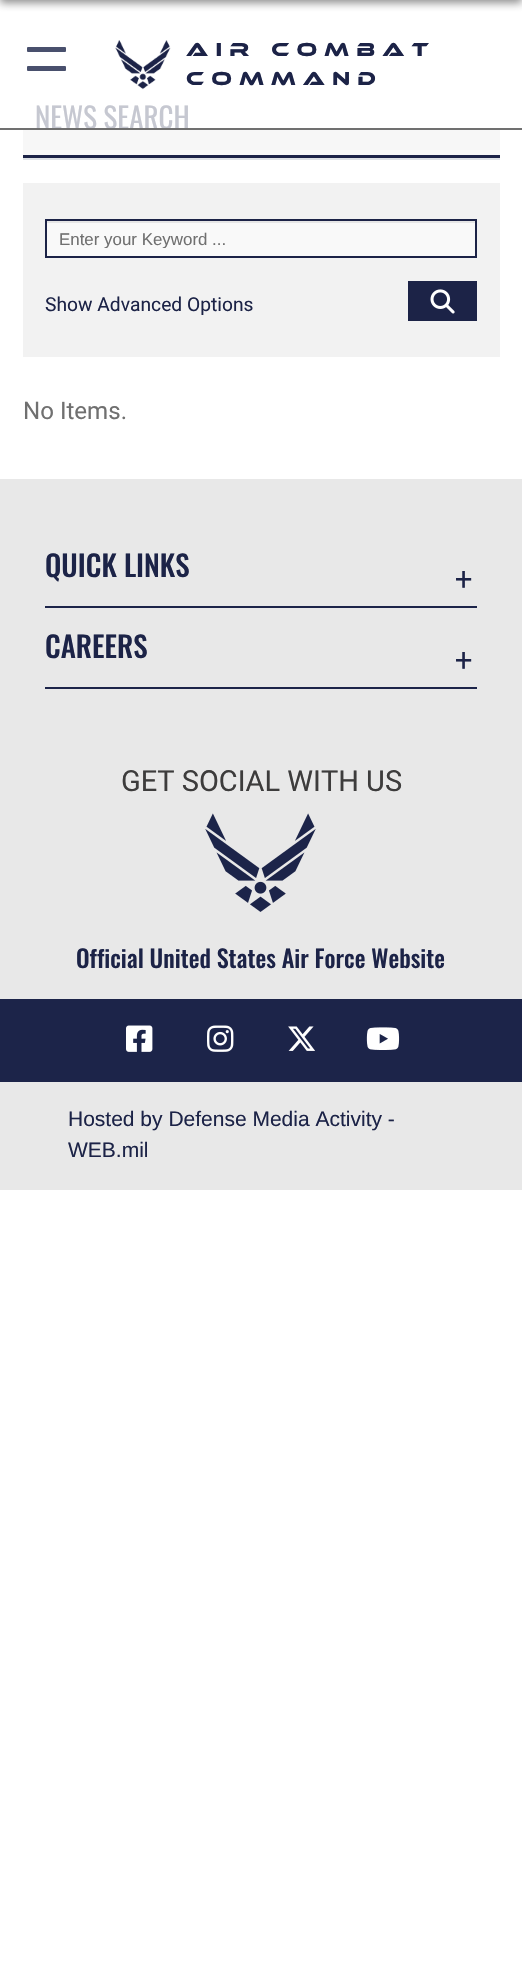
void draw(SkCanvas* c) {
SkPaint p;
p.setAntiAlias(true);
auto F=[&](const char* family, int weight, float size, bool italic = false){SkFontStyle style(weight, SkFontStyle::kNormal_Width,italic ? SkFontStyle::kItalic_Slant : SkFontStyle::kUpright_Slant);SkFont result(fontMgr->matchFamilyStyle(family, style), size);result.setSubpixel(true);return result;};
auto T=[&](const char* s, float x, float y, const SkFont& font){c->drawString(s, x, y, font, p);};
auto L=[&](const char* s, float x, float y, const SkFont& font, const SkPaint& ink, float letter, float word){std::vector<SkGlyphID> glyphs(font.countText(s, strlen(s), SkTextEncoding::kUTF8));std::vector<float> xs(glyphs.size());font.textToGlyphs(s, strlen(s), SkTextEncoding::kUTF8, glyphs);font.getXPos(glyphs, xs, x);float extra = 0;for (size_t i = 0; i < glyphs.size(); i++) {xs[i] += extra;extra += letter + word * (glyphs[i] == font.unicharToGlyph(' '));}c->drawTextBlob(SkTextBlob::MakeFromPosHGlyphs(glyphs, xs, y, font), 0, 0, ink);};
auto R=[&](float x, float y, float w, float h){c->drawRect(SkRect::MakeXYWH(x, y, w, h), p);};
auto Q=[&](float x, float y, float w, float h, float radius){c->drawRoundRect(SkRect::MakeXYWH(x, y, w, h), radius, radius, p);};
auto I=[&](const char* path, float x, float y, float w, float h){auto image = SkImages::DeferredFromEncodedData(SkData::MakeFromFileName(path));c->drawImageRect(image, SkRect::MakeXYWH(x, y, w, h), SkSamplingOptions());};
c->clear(0xffffffff);
p.setColor(0x801a1a1a);
p.setMaskFilter(SkMaskFilter::MakeBlur(kNormal_SkBlurStyle, 4));
c->drawRect(SkRect::MakeXYWH(0,-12,522,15),p);
p.setMaskFilter(nullptr);
auto f1 = F("Oswald",400,29);
p.setColor(0xffc6c8d1);
T("NEWS SEARCH",35,129,f1);
p.setColor(0xff707070);
R(0,128,522,2);
p.setColor(0xff49506d);
Q(27,47,39,5,1);
Q(27,66,39,5,1);
I("1.png",115,40,56,50);
auto f2 = F("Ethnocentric",400,19.5);
p.setColor(0xff1c2347);
L("Air Combat",186,56,f2,p,7.25,0);
L("Command",186,85,f2,p,7.25,0);
{
const SkColor colors[] = {0xffffffff,0xffffffff,0xfff7f7f7,0xfff7f7f7};
const float stops[] = {0,.38,.38,1};
const SkPoint ends[] = {{261,99}, {261,158}};
p.setShader(SkGradientShader::MakeLinear(ends, colors, stops, 4, SkTileMode::kClamp));
p.setAlpha(255);
}
R(23,130,477,25);
p.setShader(nullptr);
p.setColor(0xffdee2e6);
R(23,158,477,2);
p.setColor(0xff1c2347);
R(23,155,477,3);
p.setColor(0xfff2f2f2);
R(23,183,477,174);
p.setColor(0xfff9f9f9);
R(47,223,428,33);
p.setColor(0xffe6e6e6);
R(47,221,429,2);
p.setStroke(true);
p.setStrokeWidth(2);
p.setColor(0xff1c2347);
c->drawRect(SkRect::MakeXYWH(46,220,430,37),p);
c->save();
c->clipRect(SkRect::MakeXYWH(59,230,405,18));
auto f3 = F("Liberation Sans",400,16.9);
p.setStroke(false);
p.setColor(0xff707070);
T("Enter your Keyword ...",59,245,f3);
c->restore();
p.setColor(0xff1c2347);
R(408,281,69,40);
I("2.png",430,289,25,25);
auto f4 = F("Roboto",400,19.25);
T("Show Advanced Options",45,311,f4);
auto f5 = F("Roboto",400,24.1);
p.setColor(0xff707070);
T("No Items.",23,419,f5);
p.setColor(0xffe8e8e8);
R(0,479,522,711);
p.setColor(0xff1c2449);
R(45,606,432,2);
auto f6 = F("Oswald",500,29);
p.setColor(0xff1c2347);
T("QUICK LINKS",45,577,f6);
auto f7 = F("Oswald",300,45);
T("+",455,598,f7);
p.setColor(0xff1c2449);
R(45,687,432,2);
p.setColor(0xff1c2347);
T("CAREERS",45,658,f6);
T("+",455,679,f7);
auto f8 = F("Roboto",400,29);
p.setColor(0xff3d3c3c);
T("GET SOCIAL WITH US",121,791,f8);
I("3.png",205,813,111,99);
auto f9 = F("Oswald",500,24.1);
p.setColor(0xff1c2347);
T("Official United States Air Force Website",76,968,f9);
p.setColor(0xff1c2449);
R(0,999,522,83);
I("4.png",126,1025,27,27);
I("5.png",207,1025,27,27);
I("6.png",288,1026,27,25);
I("7.png",366,1027,34,23);
auto f10 = F("Liberation Sans",400,21);
p.setColor(0xff1c2347);
T("Hosted by Defense Media Activity -",68,1126,f10);
T("WEB.mil",68,1157,f10);
}
